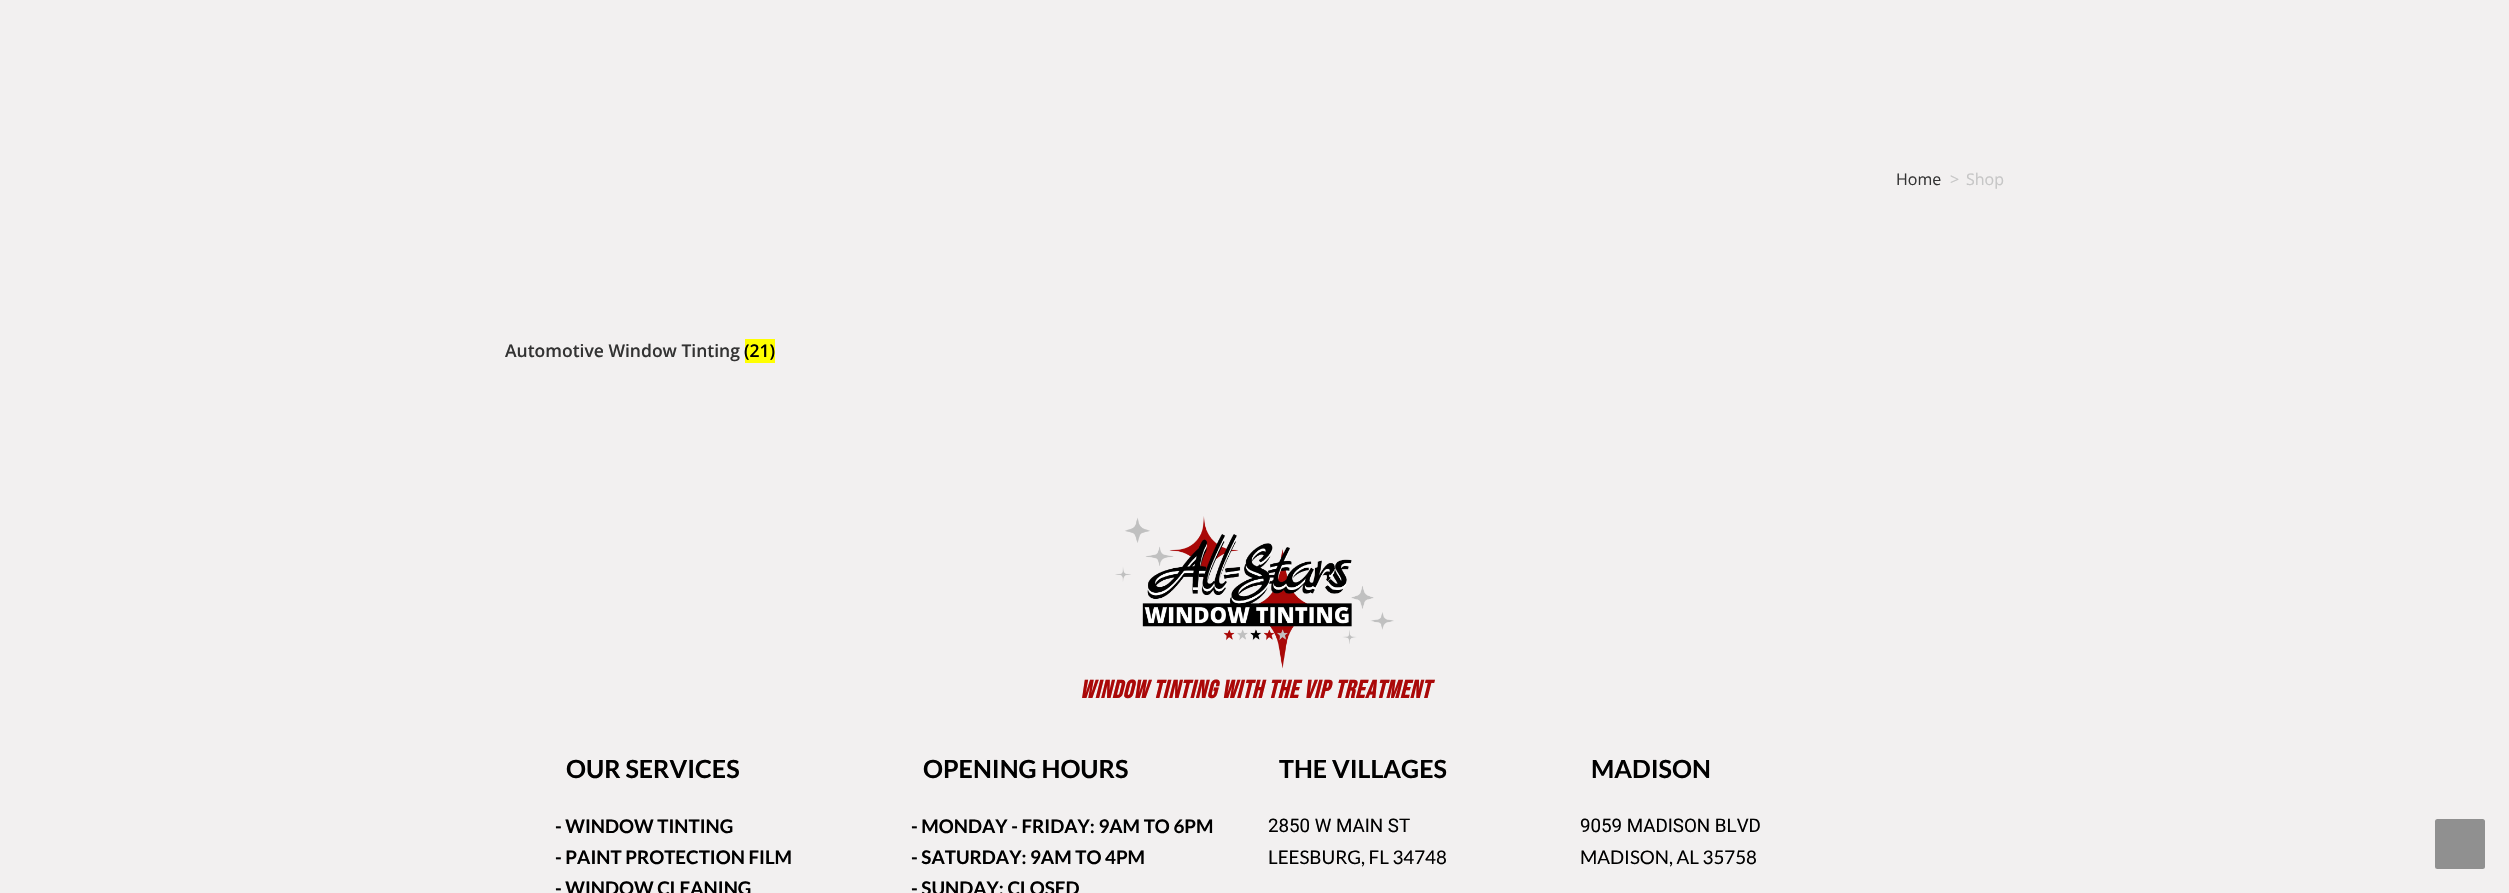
void draw(SkCanvas* c) {
SkPaint p;
p.setAntiAlias(true);
auto F=[&](const char* family, int weight, float size, bool italic = false){SkFontStyle style(weight, SkFontStyle::kNormal_Width,italic ? SkFontStyle::kItalic_Slant : SkFontStyle::kUpright_Slant);SkFont result(fontMgr->matchFamilyStyle(family, style), size);result.setSubpixel(true);return result;};
auto T=[&](const char* s, float x, float y, const SkFont& font){c->drawString(s, x, y, font, p);};
auto L=[&](const char* s, float x, float y, const SkFont& font, const SkPaint& ink, float letter, float word){std::vector<SkGlyphID> glyphs(font.countText(s, strlen(s), SkTextEncoding::kUTF8));std::vector<float> xs(glyphs.size());font.textToGlyphs(s, strlen(s), SkTextEncoding::kUTF8, glyphs);font.getXPos(glyphs, xs, x);float extra = 0;for (size_t i = 0; i < glyphs.size(); i++) {xs[i] += extra;extra += letter + word * (glyphs[i] == font.unicharToGlyph(' '));}c->drawTextBlob(SkTextBlob::MakeFromPosHGlyphs(glyphs, xs, y, font), 0, 0, ink);};
auto R=[&](float x, float y, float w, float h){c->drawRect(SkRect::MakeXYWH(x, y, w, h), p);};
auto Q=[&](float x, float y, float w, float h, float radius){c->drawRoundRect(SkRect::MakeXYWH(x, y, w, h), radius, radius, p);};
auto I=[&](const char* path, float x, float y, float w, float h){auto image = SkImages::DeferredFromEncodedData(SkData::MakeFromFileName(path));c->drawImageRect(image, SkRect::MakeXYWH(x, y, w, h), SkSamplingOptions());};
c->clear(0xfff2f0f0);
auto f1 = F("Open Sans",400,16);
p.setColor(0xff333333);
T("Home",1896,185,f1);
p.setColor(0xffc6c6c6);
T(">",1950,185,f1);
T("Shop",1966,185,f1);
auto f2 = F("Open Sans",600,17.5);
p.setColor(0xff333333);
T("Automotive Window Tinting",505,357,f2);
p.setColor(0xffffff00);
R(745,339,30,24);
p.setColor(0xff000000);
T("(21)",744,357,f2);
I("1.png",1115,516,279,153);
auto f3 = F("Bebas Neue",700,25,true);
p.setColor(0xffaa0808);
L("Window Tinting With the VIP Treatment",1080,698,f3,p,.75,0);
auto f4 = F("Lato",700,25);
p.setColor(0xff000000);
T("OUR SERVICES",566,778,f4);
auto f5 = F("Lato",700,18.75);
T("- WINDOW TINTING",555,833,f5);
T("- PAINT PROTECTION FILM",555,864,f5);
T("- WINDOW CLEANING",555,895,f5);
T("OPENING HOURS",923,778,f4);
T("- MONDAY - FRIDAY: 9AM TO 6PM",911,833,f5);
T("- SATURDAY: 9AM TO 4PM",911,864,f5);
T("- SUNDAY: CLOSED",911,895,f5);
T("THE VILLAGES",1279,778,f4);
auto f6 = F("Roboto",400,18.75);
T("2850 W MAIN ST",1268,832,f6);
auto f7 = F("Lato",400,18.75);
T("LEESBURG, FL 34748",1268,864,f7);
T("MADISON",1591,778,f4);
T("9059 MADISON BLVD",1580,832,f6);
T("MADISON, AL 35758",1580,864,f7);
p.setColor(0xff909090);
Q(2435,819,50,50,2.5);
}
